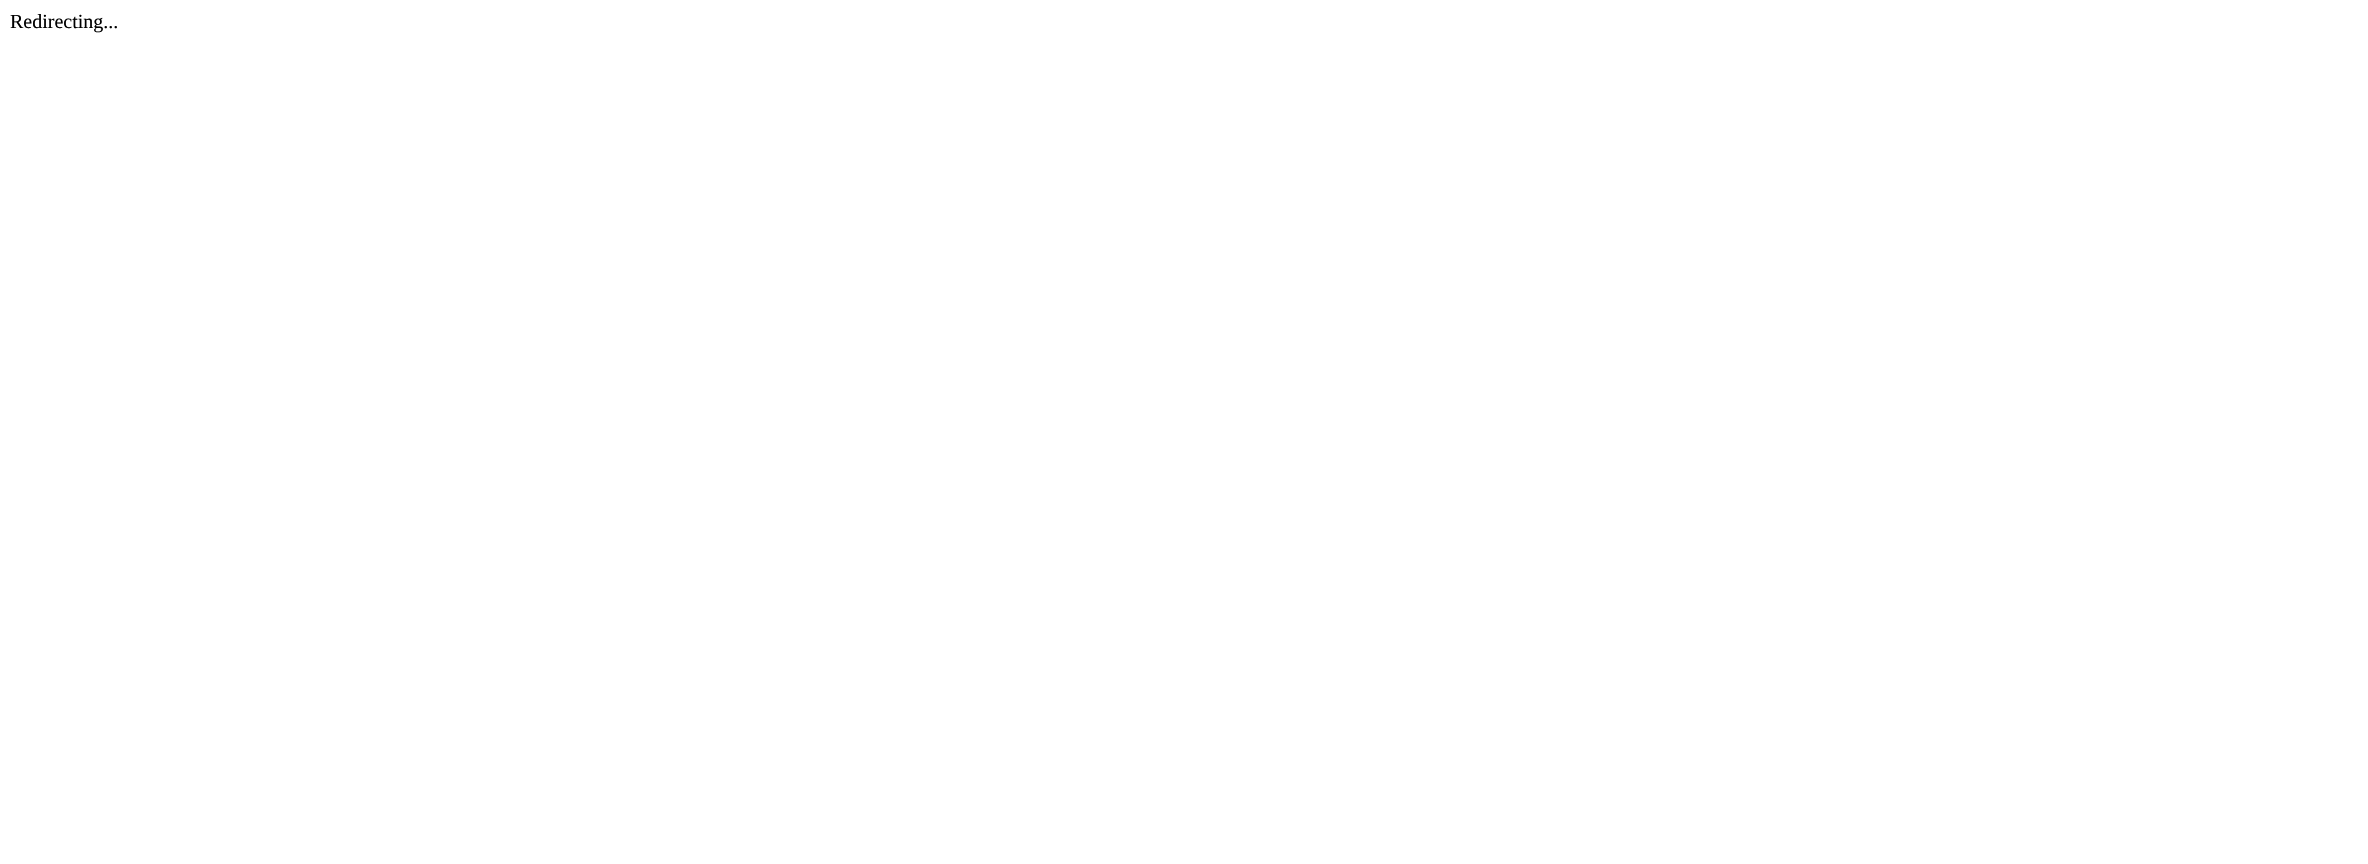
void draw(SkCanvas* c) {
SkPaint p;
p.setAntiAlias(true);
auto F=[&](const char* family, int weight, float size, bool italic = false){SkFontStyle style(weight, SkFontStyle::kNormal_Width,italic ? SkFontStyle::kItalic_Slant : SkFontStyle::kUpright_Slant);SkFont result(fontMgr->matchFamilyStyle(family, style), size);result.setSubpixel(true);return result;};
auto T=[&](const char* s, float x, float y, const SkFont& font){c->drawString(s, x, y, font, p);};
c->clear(0xffffffff);
auto f1 = F("Liberation Serif",400,20);
p.setColor(0xff000000);
T("Redirecting...",10,28,f1);
}
